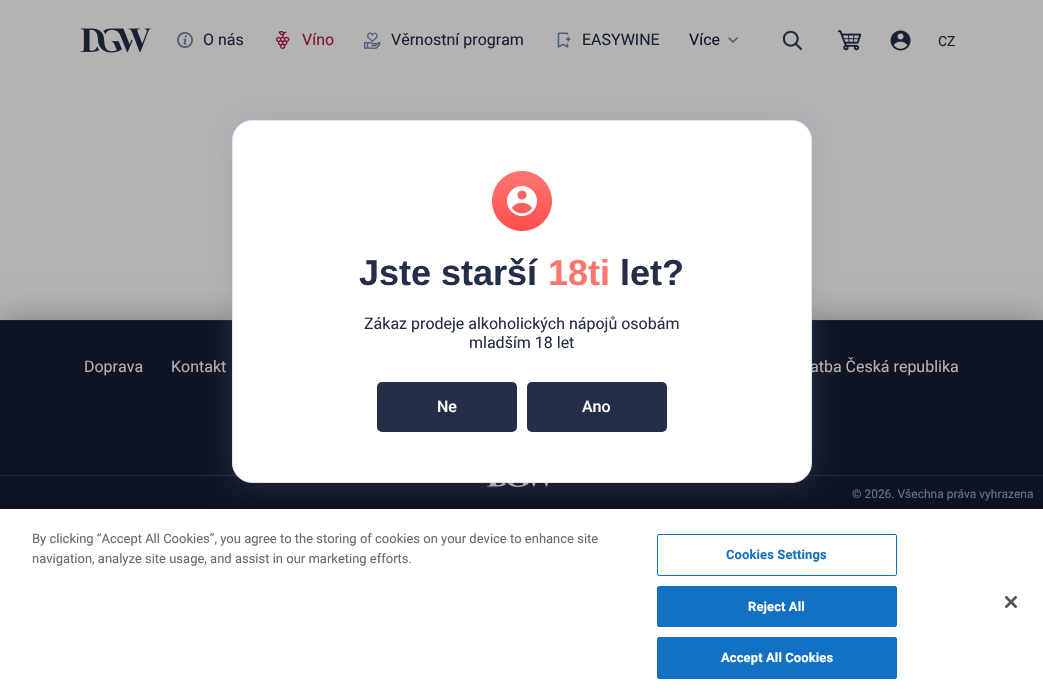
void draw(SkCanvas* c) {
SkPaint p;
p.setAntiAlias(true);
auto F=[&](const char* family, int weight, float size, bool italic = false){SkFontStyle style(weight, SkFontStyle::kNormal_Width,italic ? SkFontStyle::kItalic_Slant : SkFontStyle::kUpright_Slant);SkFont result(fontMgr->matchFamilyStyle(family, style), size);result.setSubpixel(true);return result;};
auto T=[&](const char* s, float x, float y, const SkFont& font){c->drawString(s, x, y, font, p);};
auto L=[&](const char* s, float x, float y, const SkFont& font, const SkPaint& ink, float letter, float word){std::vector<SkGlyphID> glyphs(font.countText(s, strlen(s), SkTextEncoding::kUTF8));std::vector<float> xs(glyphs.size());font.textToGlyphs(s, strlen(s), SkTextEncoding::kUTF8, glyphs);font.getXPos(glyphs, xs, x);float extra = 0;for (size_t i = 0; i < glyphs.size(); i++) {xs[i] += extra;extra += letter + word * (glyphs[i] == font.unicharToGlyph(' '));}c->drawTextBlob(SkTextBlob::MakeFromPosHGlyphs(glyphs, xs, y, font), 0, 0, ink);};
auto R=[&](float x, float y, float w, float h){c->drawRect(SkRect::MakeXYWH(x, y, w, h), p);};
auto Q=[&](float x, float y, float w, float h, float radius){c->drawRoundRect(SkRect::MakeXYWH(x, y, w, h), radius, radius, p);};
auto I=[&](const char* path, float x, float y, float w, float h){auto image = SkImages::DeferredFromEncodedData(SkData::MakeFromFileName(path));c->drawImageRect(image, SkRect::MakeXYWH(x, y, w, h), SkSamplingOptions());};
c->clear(0xffb3b3b3);
I("1.png",80,28,71,25);
I("2.png",177,32,16,16);
auto f1 = F("Roboto",400,16);
p.setColor(0xff192033);
T("O nás",203,45,f1);
I("3.png",276,31,14,18);
p.setColor(0xff7e122b);
T("Víno",302,45,f1);
I("4.png",364,32,17,17);
p.setColor(0xff192033);
T("Věrnostní program",391,45,f1);
I("5.png",557,32,14,16);
T("EASYWINE",582,45,f1);
p.setColor(0xff0f1424);
T("Více",689,45,f1);
I("6.png",728,37,10,6);
I("7.png",782,30,21,21);
I("8.png",838,30,24,21);
I("9.png",890,30,21,21);
auto f2 = F("Roboto",400,14);
p.setColor(0xff192033);
T("CZ",938,46,f2);
p.setColor(0x4d000000);
p.setMaskFilter(SkMaskFilter::MakeBlur(kNormal_SkBlurStyle, 15));
c->drawRect(SkRect::MakeXYWH(0,320,1043,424),p);
p.setMaskFilter(nullptr);
p.setColor(0xff0f1424);
R(0,321,1043,188);
p.setColor(0xff192033);
R(0,320,1043,1);
p.setColor(0xff202a43);
R(0,475,1043,1);
I("11.png",487,483,62,4);
p.setColor(0x407481aa);
p.setMaskFilter(SkMaskFilter::MakeBlur(kNormal_SkBlurStyle, 15));
c->drawRoundRect(SkRect::MakeXYWH(232,120,580,363),20,20,p);
p.setMaskFilter(nullptr);
p.setColor(0xffb3b3b3);
T("atba Česká republika",810,372,f1);
p.setColor(0xffffffff);
c->drawRoundRect(SkRect::MakeXYWH(232.5,120.5,579,362),19.5,19.5,p);
p.setStroke(true);
p.setStrokeWidth(1);
p.setColor(0xffe0e4ef);
c->drawRoundRect(SkRect::MakeXYWH(232.5,120.5,579,362),19.5,19.5,p);
I("10.png",492,171,60,60);
auto f3 = F("Liberation Sans",700,36);
p.setStroke(false);
p.setColor(0xff242e49);
T("Jste starší",359,285,f3);
p.setColor(0xffff7671);
T("18ti",548,285,f3);
p.setColor(0xff242e49);
T("let?",620,285,f3);
T("Zákaz prodeje alkoholických nápojů osobám",364,329,f1);
T("mladším 18 let",469,348,f1);
Q(377,382,140,50,5);
auto f4 = F("Roboto",500,16);
p.setColor(0xffffffff);
T("Ne",437,412,f4);
p.setColor(0xff242e49);
Q(527,382,140,50,5);
p.setColor(0xffffffff);
T("Ano",582,412,f4);
p.setColor(0xffb3b3b3);
T("Doprava",84,372,f1);
T("Kontakt",171,372,f1);
auto f5 = F("Roboto",400,12);
p.setColor(0xff707489);
T("© 2026. Všechna práva vyhrazena",852,498,f5);
p.setColor(0x33000000);
p.setMaskFilter(SkMaskFilter::MakeBlur(kNormal_SkBlurStyle, 9));
c->drawRect(SkRect::MakeXYWH(0,509,1043,190),p);
p.setMaskFilter(nullptr);
p.setColor(0xffffffff);
R(0,509,1043,190);
auto f6 = F("Roboto",400,13);
p.setColor(0xff696969);
T("By clicking “Accept All Cookies”, you agree to the storing of cookies on your device to enhance site",32,543,f6);
T("navigation, analyze site usage, and assist in our marketing efforts.",32,563,f6);
p.setStroke(true);
p.setColor(0xff1371c3);
c->drawRoundRect(SkRect::MakeXYWH(657.5,534.5,239,41),1.5,1.5,p);
auto f7 = F("Roboto",700,13);
p.setStroke(false);
L("Cookies Settings",726,559,f7,p,.1,0);
c->drawRoundRect(SkRect::MakeXYWH(657.5,586.5,239,40),1.5,1.5,p);
p.setStroke(true);
c->drawRoundRect(SkRect::MakeXYWH(657.5,586.5,239,40),1.5,1.5,p);
p.setStroke(false);
p.setColor(0xffffffff);
L("Reject All",748,611,f7,p,.1,0);
p.setColor(0xff1371c3);
c->drawRoundRect(SkRect::MakeXYWH(657.5,637.5,239,41),1.5,1.5,p);
p.setStroke(true);
c->drawRoundRect(SkRect::MakeXYWH(657.5,637.5,239,41),1.5,1.5,p);
p.setStroke(false);
p.setColor(0xffffffff);
L("Accept All Cookies",721,662,f7,p,.1,0);
I("12.png",1005,596,12,12);
}
